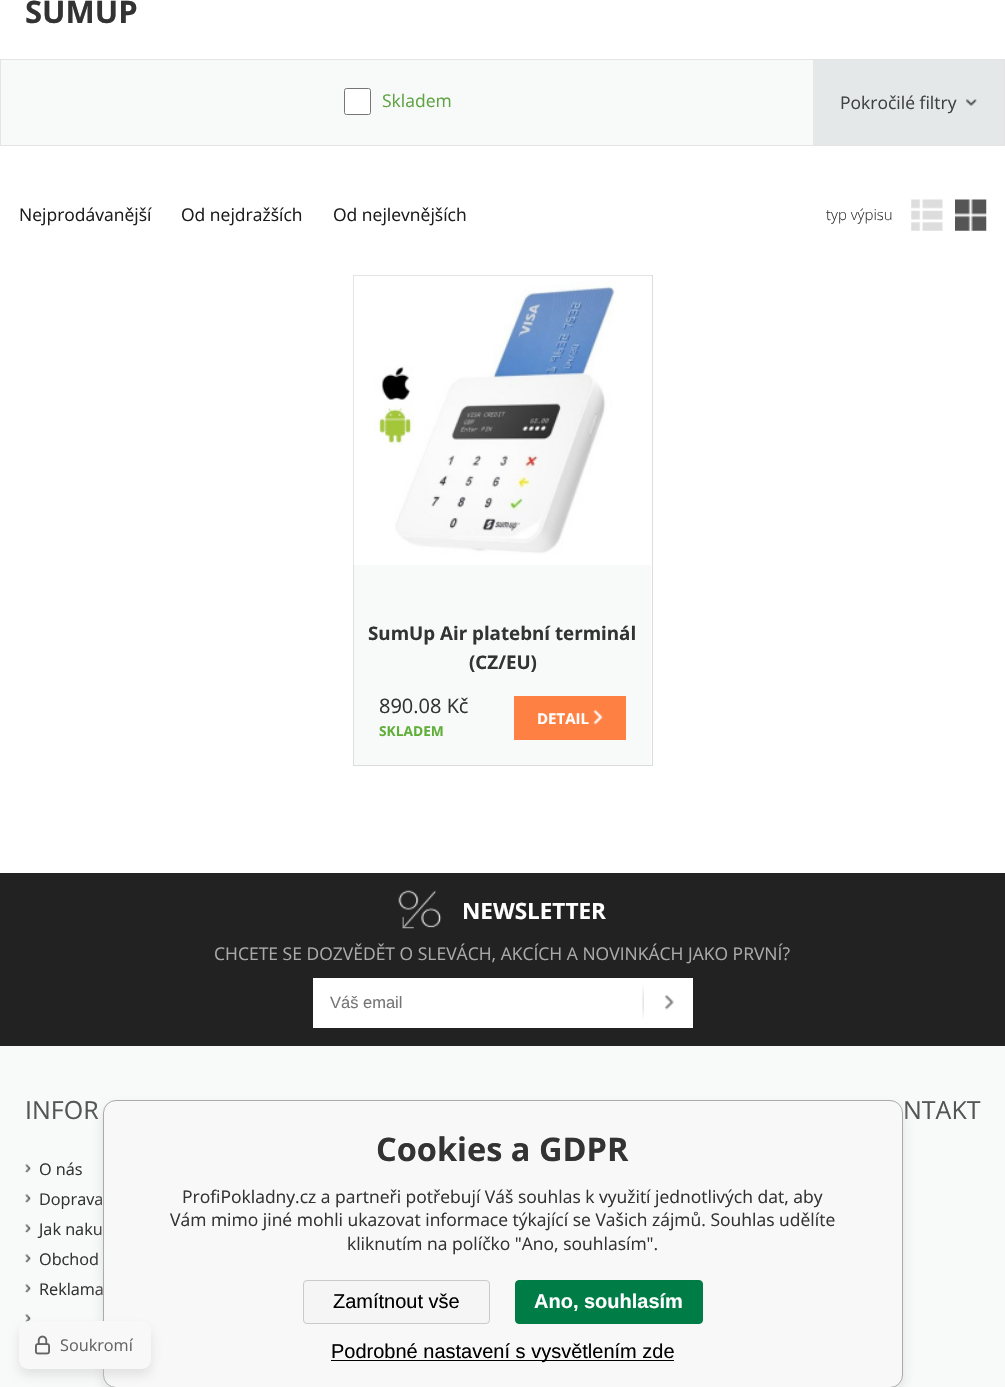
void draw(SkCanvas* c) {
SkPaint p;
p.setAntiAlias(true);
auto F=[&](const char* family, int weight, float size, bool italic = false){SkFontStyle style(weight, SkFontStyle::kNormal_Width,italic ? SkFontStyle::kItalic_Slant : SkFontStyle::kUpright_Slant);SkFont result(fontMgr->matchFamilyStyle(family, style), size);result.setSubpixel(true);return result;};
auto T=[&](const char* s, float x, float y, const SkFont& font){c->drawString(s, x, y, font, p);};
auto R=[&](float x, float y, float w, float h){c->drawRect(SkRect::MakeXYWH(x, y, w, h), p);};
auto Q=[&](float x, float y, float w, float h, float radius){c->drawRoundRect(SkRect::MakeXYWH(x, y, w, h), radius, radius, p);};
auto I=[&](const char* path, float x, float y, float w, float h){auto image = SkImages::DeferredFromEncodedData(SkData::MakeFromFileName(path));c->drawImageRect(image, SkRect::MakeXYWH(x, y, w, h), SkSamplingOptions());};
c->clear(0xffffffff);
auto f1 = F("Open Sans",700,31);
p.setColor(0xff333333);
T("SUMUP",25,23,f1);
p.setStroke(true);
p.setStrokeWidth(1);
p.setColor(0xffe4e4e4);
c->drawRect(SkRect::MakeXYWH(.5,59.5,1004,86),p);
p.setStroke(false);
p.setColor(0xfff8f9f9);
R(1,60,812,85);
p.setColor(0xffffffff);
c->drawRoundRect(SkRect::MakeXYWH(344.5,88.5,26,26),2,2,p);
p.setStroke(true);
p.setColor(0xff767676);
c->drawRoundRect(SkRect::MakeXYWH(344.5,88.5,26,26),2,2,p);
auto f2 = F("Open Sans",400,17.5);
p.setStroke(false);
p.setColor(0xff5fa442);
T("Skladem",382,107,f2);
p.setColor(0xffe4e8e8);
R(813,60,191,85);
p.setColor(0xff414141);
T("Pokročilé filtry",840,109,f2);
I("1.png",966,99,11,7);
p.setColor(0xff1d1d1d);
T("Nejprodávanější",19,221,f2);
T("Od nejdražších",181,221,f2);
T("Od nejlevnějších",333,221,f2);
auto f3 = F("Open Sans",300,15);
p.setColor(0xff333333);
T("typ výpisu",826,220,f3);
I("2.png",911,199,32,32);
I("3.png",955,199,32,32);
p.setStroke(true);
p.setColor(0xffdddddd);
c->drawRect(SkRect::MakeXYWH(353.5,275.5,299,490),p);
I("4.png",353,275,298,290);
p.setStroke(false);
p.setColor(0xfff8f9f9);
R(354,565,297,200);
auto f4 = F("Open Sans",700,18.75);
p.setColor(0xff333333);
T("SumUp Air platební terminál",368,640,f4);
T("(CZ/EU)",469,669,f4);
auto f5 = F("Open Sans",400,20);
T("890.08 Kč",379,713,f5);
auto f6 = F("Open Sans",700,13.75);
p.setColor(0xff60af38);
T("SKLADEM",379,736,f6);
p.setColor(0xffff8043);
R(514,696,112,44);
I("5.png",593,709,10,16);
auto f7 = F("Open Sans",700,15);
p.setColor(0xffffffff);
T("DETAIL",537,724,f7);
p.setColor(0xff222222);
R(0,873,1005,173);
I("6.png",398,890,44,39);
auto f8 = F("Open Sans",700,22.5);
p.setColor(0xffffffff);
T("NEWSLETTER",462,919,f8);
p.setColor(0xffaaaaaa);
T("CHCETE SE DOZVĚDĚT O SLEVÁCH, AKCÍCH A NOVINKÁCH JAKO PRVNÍ?",214,960,f2);
p.setColor(0xffffffff);
R(313,978,380,50);
auto f9 = F("Liberation Sans",400,16.5);
p.setColor(0xff757575);
T("Váš email",330,1008,f9);
I("7.png",642,985,32,34);
p.setColor(0xfff8f9f9);
R(0,1046,1005,341);
auto f10 = F("Open Sans",400,25);
p.setColor(0xff555555);
T("INFOR",25,1119,f10);
I("8.png",25,1164,6,9);
auto f11 = F("Open Sans",400,16.25);
p.setColor(0xff333333);
T("O nás",39,1175,f11);
I("8.png",25,1194,6,9);
T("Doprava",39,1205,f11);
I("8.png",25,1224,6,9);
T("Jak naku",39,1235,f11);
I("8.png",25,1254,6,9);
T("Obchod",39,1265,f11);
I("8.png",25,1284,6,9);
T("Reklama",39,1295,f11);
I("9.png",25,1314,6,8);
p.setColor(0xff555555);
T("NTAKT",903,1119,f10);
p.setColor(0x80c8c8c8);
p.setMaskFilter(SkMaskFilter::MakeBlur(kNormal_SkBlurStyle, 6));
c->drawRoundRect(SkRect::MakeXYWH(103,1106,800,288),13,13,p);
p.setMaskFilter(nullptr);
p.setColor(0xfff8f8f8);
c->drawRoundRect(SkRect::MakeXYWH(103.5,1100.5,799,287),12.5,12.5,p);
p.setStroke(true);
p.setColor(0xffaaaaaa);
c->drawRoundRect(SkRect::MakeXYWH(103.5,1100.5,799,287),12.5,12.5,p);
p.setStroke(false);
p.setColor(0x80c8c8c8);
p.setMaskFilter(SkMaskFilter::MakeBlur(kNormal_SkBlurStyle, 6));
c->drawRoundRect(SkRect::MakeXYWH(19,1328,132,47),9,9,p);
p.setMaskFilter(nullptr);
p.setColor(0xfff8f8f8);
Q(19,1321,132,48,9);
I("10.png",35,1335,15,20);
p.setColor(0xff646464);
T("Soukromí",60,1351,f11);
auto f12 = F("Open Sans",700,32.5);
p.setColor(0xff333333);
T("Cookies a GDPR",376,1161,f12);
T("ProfiPokladny.cz a partneři potřebují Váš souhlas k využití jednotlivých dat, aby",182,1203,f2);
T("Vám mimo jiné mohli ukazovat informace týkající se Vašich zájmů. Souhlas udělíte",170,1226,f2);
T("kliknutím na políčko \"Ano, souhlasím\".",347,1250,f2);
p.setColor(0xfff5f5f5);
c->drawRoundRect(SkRect::MakeXYWH(303.5,1280.5,186,43),3.5,3.5,p);
p.setStroke(true);
p.setColor(0xffcacaca);
c->drawRoundRect(SkRect::MakeXYWH(303.5,1280.5,186,43),3.5,3.5,p);
auto f13 = F("Liberation Sans",400,20);
p.setStroke(false);
p.setColor(0xff000000);
T("Zamítnout vše",333,1308,f13);
p.setColor(0xff007c47);
c->drawRoundRect(SkRect::MakeXYWH(515.5,1280.5,187,43),3.5,3.5,p);
p.setStroke(true);
c->drawRoundRect(SkRect::MakeXYWH(515.5,1280.5,187,43),3.5,3.5,p);
auto f14 = F("Liberation Sans",700,20);
p.setStroke(false);
p.setColor(0xffffffff);
T("Ano, souhlasím",534,1308,f14);
p.setColor(0xff000000);
R(331,1360,343,1);
T("Podrobné nastavení s vysvětlením zde",331,1358,f13);
}
